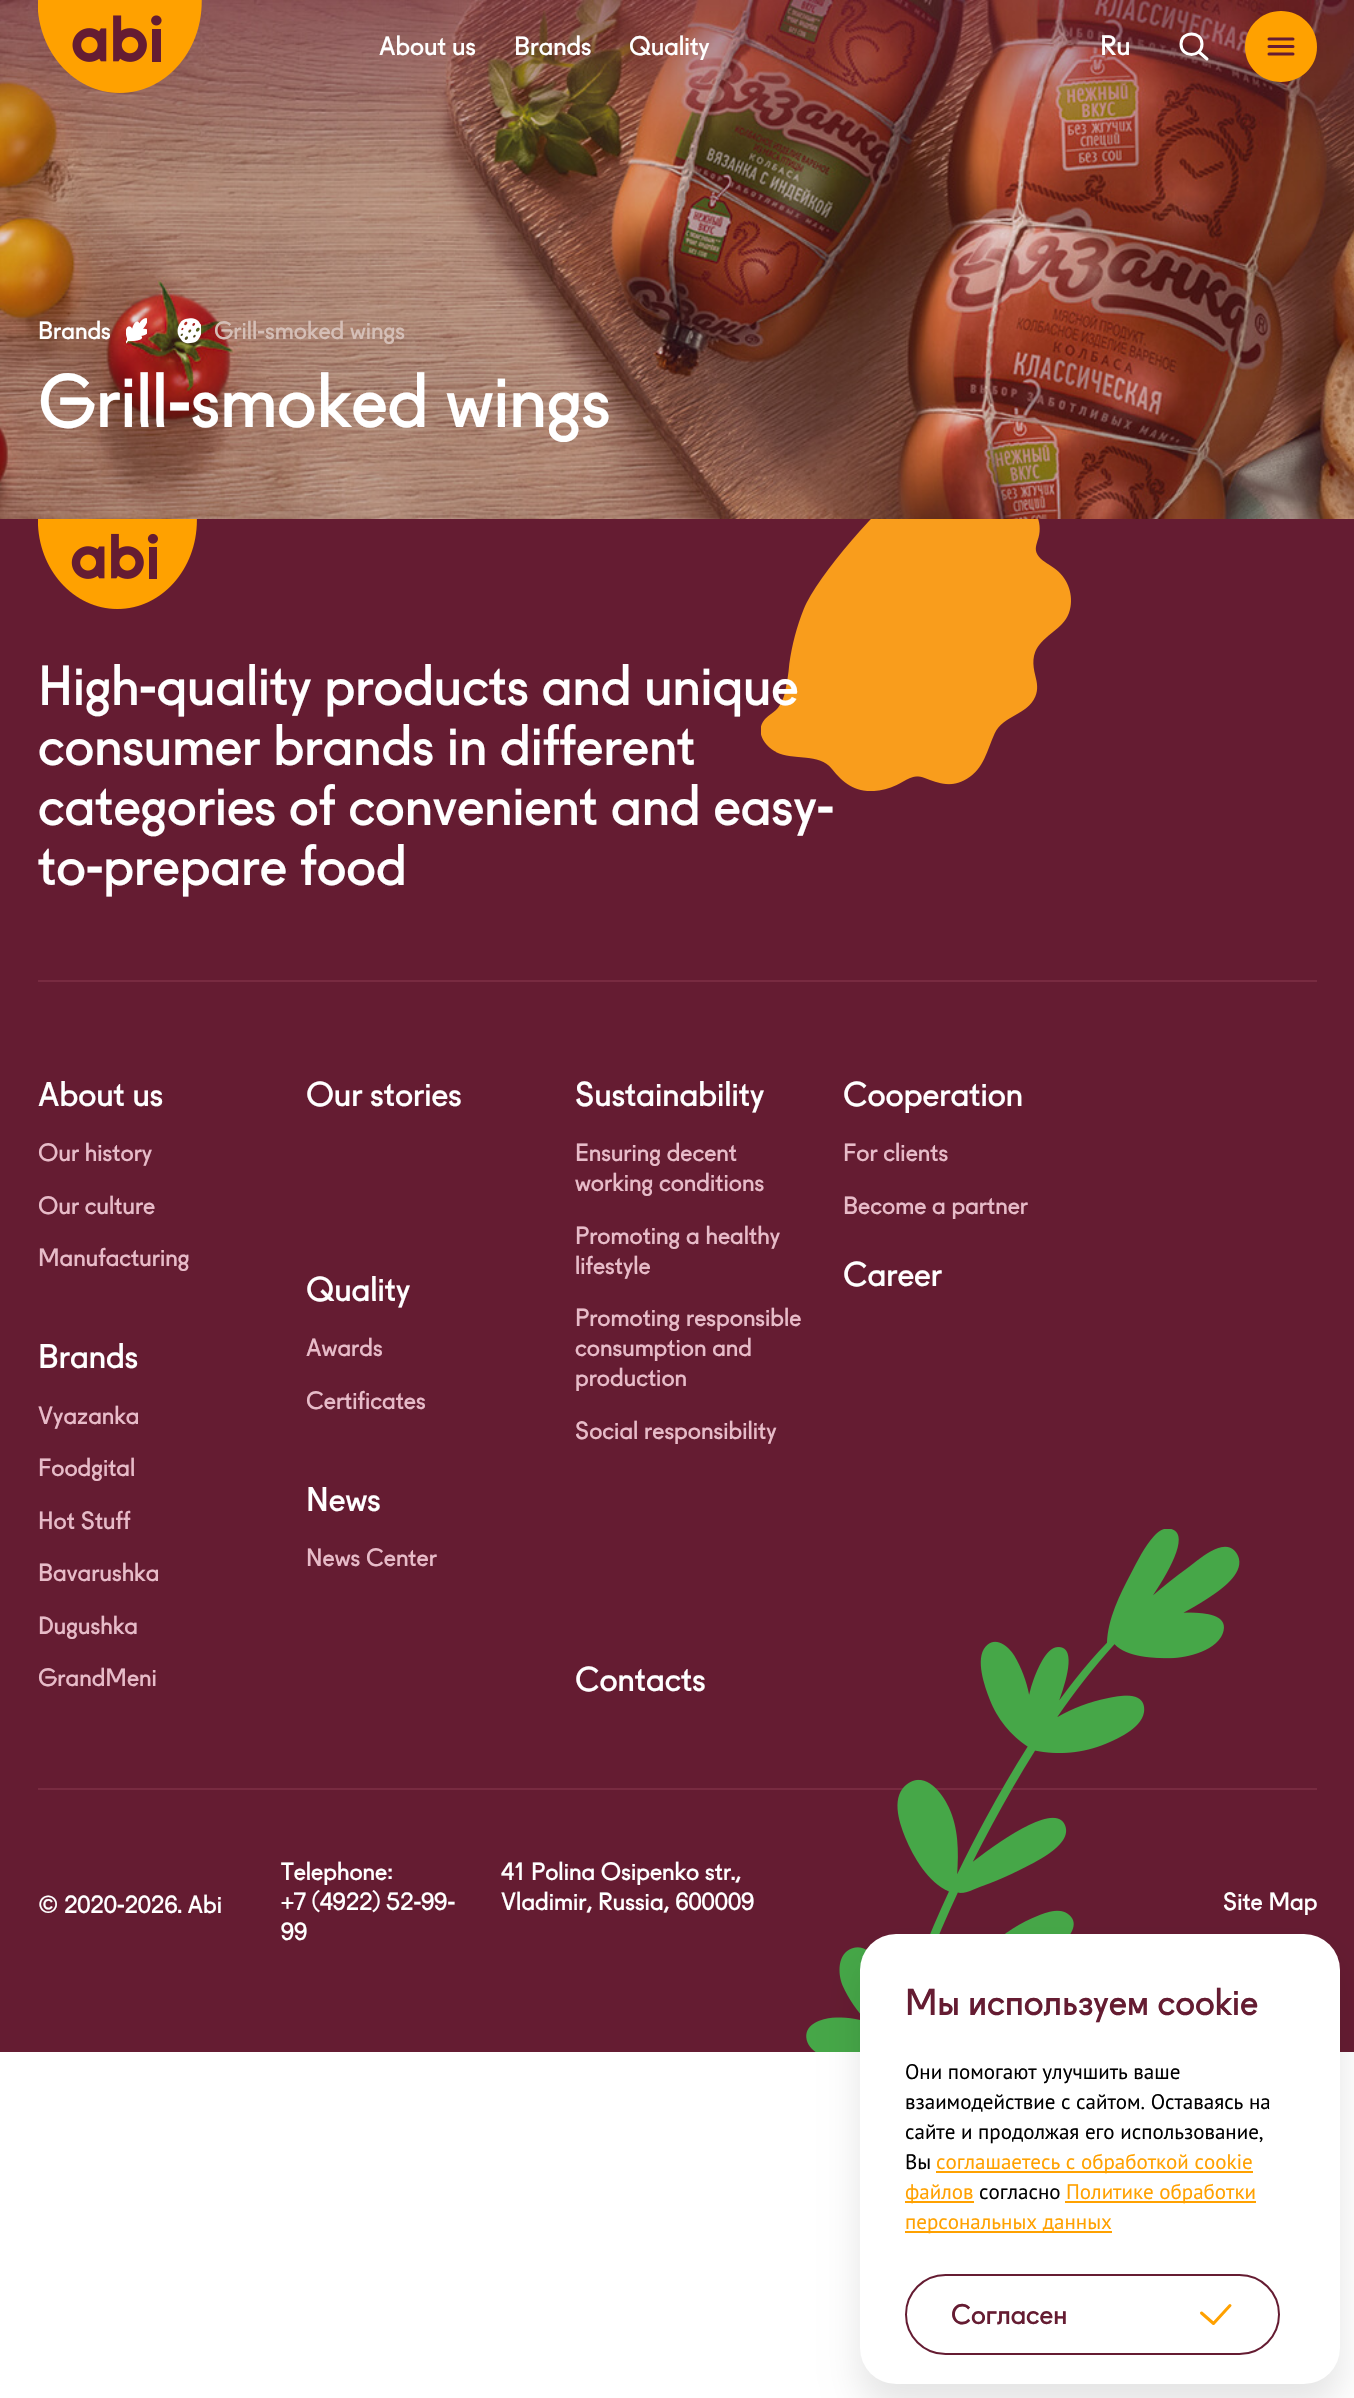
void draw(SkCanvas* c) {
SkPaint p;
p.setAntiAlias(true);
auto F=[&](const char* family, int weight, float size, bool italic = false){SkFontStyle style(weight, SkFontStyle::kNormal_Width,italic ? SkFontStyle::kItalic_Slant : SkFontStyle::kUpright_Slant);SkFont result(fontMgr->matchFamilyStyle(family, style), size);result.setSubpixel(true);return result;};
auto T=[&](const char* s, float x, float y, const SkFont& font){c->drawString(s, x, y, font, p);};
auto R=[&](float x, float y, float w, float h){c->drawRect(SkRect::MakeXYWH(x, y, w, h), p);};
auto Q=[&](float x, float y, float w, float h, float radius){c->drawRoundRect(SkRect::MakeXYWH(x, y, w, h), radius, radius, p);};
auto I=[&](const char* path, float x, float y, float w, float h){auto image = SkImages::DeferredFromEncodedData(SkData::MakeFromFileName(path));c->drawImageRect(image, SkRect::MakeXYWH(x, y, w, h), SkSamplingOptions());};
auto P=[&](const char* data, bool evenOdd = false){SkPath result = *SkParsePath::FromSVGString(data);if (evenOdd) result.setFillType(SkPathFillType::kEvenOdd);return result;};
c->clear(0xffffffff);
I("1.png",0,0,1354,519);
I("2.png",38,0,164,93);
auto f1 = F("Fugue",400,25.5);
p.setColor(0xffffffff);
T("About us",379,55,f1);
T("Brands",514,55,f1);
T("Quality",629,55,f1);
auto f2 = F("Fugue",400,27);
T("Ru",1100,55,f2);
p.setStroke(true);
p.setStrokeWidth(3);
p.setStrokeCap(SkPaint::kRound_Cap);
p.setStrokeJoin(SkPaint::kRound_Join);
c->drawPath(P("M1199 52l8 7m-5-15c0 14-21 14-21 0c0-13.5 21-13.5 21 0z"),p);
p.setStroke(false);
p.setColor(0xffffa100);
c->drawPath(P("M1281 11c20 0 36 16 36 36c0 20-16 35-36 35c-20 0-36-15-36-35c0-20 16-36 36-36z"),p);
p.setStroke(true);
p.setColor(0xff651c32);
c->drawPath(P("M1293 46.5h-24m24 7.5h-24m24-15h-24"),p);
auto f3 = F("Fugue",400,24);
p.setStroke(false);
p.setColor(0xffffffff);
T("Brands",38,339,f3);
I("3.png",126,318,21,26);
I("4.png",177,318,24,26);
p.setColor(0xffd5bfb7);
T("Grill-smoked wings",214,339,f3);
auto f4 = F("Fugue",400,72);
p.setColor(0xffffffff);
T("Grill-smoked wings",38,427,f4);
p.setColor(0xff651c32);
R(0,519,1354,1533);
I("5.png",761,519,310,272);
I("6.png",38,519,159,90);
auto f5 = F("Fugue",400,54);
p.setColor(0xffffffff);
T("High-quality products and unique",38,705,f5);
T("consumer brands in different",38,765,f5);
T("categories of convenient and easy-",38,825,f5);
T("to-prepare food",38,885,f5);
p.setColor(0xff782b41);
R(38,980,1279,2);
R(38,1788,1279,2);
auto f6 = F("Fugue",400,33);
p.setColor(0xffffffff);
T("About us",38,1106,f6);
p.setColor(0xffe7bbc8);
T("Our history",38,1161,f3);
T("Our culture",38,1214,f3);
T("Manufacturing",38,1266,f3);
p.setColor(0xffffffff);
T("Our stories",306,1106,f6);
T("Sustainability",575,1106,f6);
p.setColor(0xffe7bbc8);
T("Ensuring decent",575,1161,f3);
T("working conditions",575,1191,f3);
T("Promoting a healthy",575,1244,f3);
T("lifestyle",575,1274,f3);
T("Promoting responsible",575,1326,f3);
T("consumption and",575,1356,f3);
T("production",575,1386,f3);
T("Social responsibility",575,1439,f3);
p.setColor(0xffffffff);
T("Cooperation",843,1106,f6);
p.setColor(0xffe7bbc8);
T("For clients",843,1161,f3);
T("Become a partner",843,1214,f3);
p.setColor(0xffffffff);
T("Brands",38,1368,f6);
p.setColor(0xffe7bbc8);
T("Vyazanka",38,1424,f3);
T("Foodgital",38,1476,f3);
T("Hot Stuff",38,1529,f3);
T("Bavarushka",38,1581,f3);
T("Dugushka",38,1634,f3);
T("GrandMeni",38,1686,f3);
p.setColor(0xffffffff);
T("Quality",306,1301,f6);
p.setColor(0xffe7bbc8);
T("Awards",306,1356,f3);
T("Certificates",306,1409,f3);
p.setColor(0xffffffff);
T("Career",843,1286,f6);
T("News",306,1511,f6);
p.setColor(0xffe7bbc8);
T("News Center",306,1566,f3);
p.setColor(0xffffffff);
T("Contacts",575,1691,f6);
T("© 2020-2026. Abi",38,1913,f3);
T("Telephone:",281,1880,f3);
T("+7 (4922) 52-99-",281,1910,f3);
T("99",281,1940,f3);
T("41 Polina Osipenko str.,",501,1880,f3);
T("Vladimir, Russia, 600009",501,1910,f3);
I("7.png",806,1529,434,523);
T("Site Map",1223,1910,f3);
p.setColor(0x1a000000);
p.setMaskFilter(SkMaskFilter::MakeBlur(kNormal_SkBlurStyle, 18));
c->drawRoundRect(SkRect::MakeXYWH(860,1958,480,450),36,36,p);
p.setMaskFilter(nullptr);
p.setColor(0xffffffff);
Q(860,1934,480,450,36);
auto f7 = F("Fugue",400,36);
p.setColor(0xff651c32);
T("Мы используем cookie",905,2015,f7);
auto f8 = F("PT Sans",400,21);
p.setColor(0xff000000);
T("Они помогают улучшить ваше",905,2079,f8);
T("взаимодействие с сайтом. Оставаясь на",905,2109,f8);
T("сайте и продолжая его использование,",905,2139,f8);
T("Вы",905,2169,f8);
p.setColor(0xffffa100);
R(936,2171,317,2);
T("соглашаетесь с обработкой cookie",936,2169,f8);
R(905,2201,69,2);
T("файлов",905,2199,f8);
p.setColor(0xff000000);
T("согласно",979,2199,f8);
p.setColor(0xffffa100);
R(1065,2201,191,2);
T("Политике обработки",1066,2199,f8);
R(905,2231,207,2);
T("персональных данных",905,2229,f8);
p.setStroke(true);
p.setStrokeWidth(2);
p.setStrokeCap(SkPaint::kButt_Cap);
p.setStrokeJoin(SkPaint::kMiter_Join);
p.setColor(0xff651c32);
c->drawRoundRect(SkRect::MakeXYWH(906,2275,373,79),39.5,39.5,p);
p.setStroke(false);
T("Согласен",951,2324,f2);
p.setStroke(true);
p.setStrokeWidth(3);
p.setStrokeCap(SkPaint::kRound_Cap);
p.setStrokeJoin(SkPaint::kRound_Join);
p.setColor(0xffffa100);
c->drawPath(P("M1201.5 2313l12 10.5l16.5-18"),p);
}
